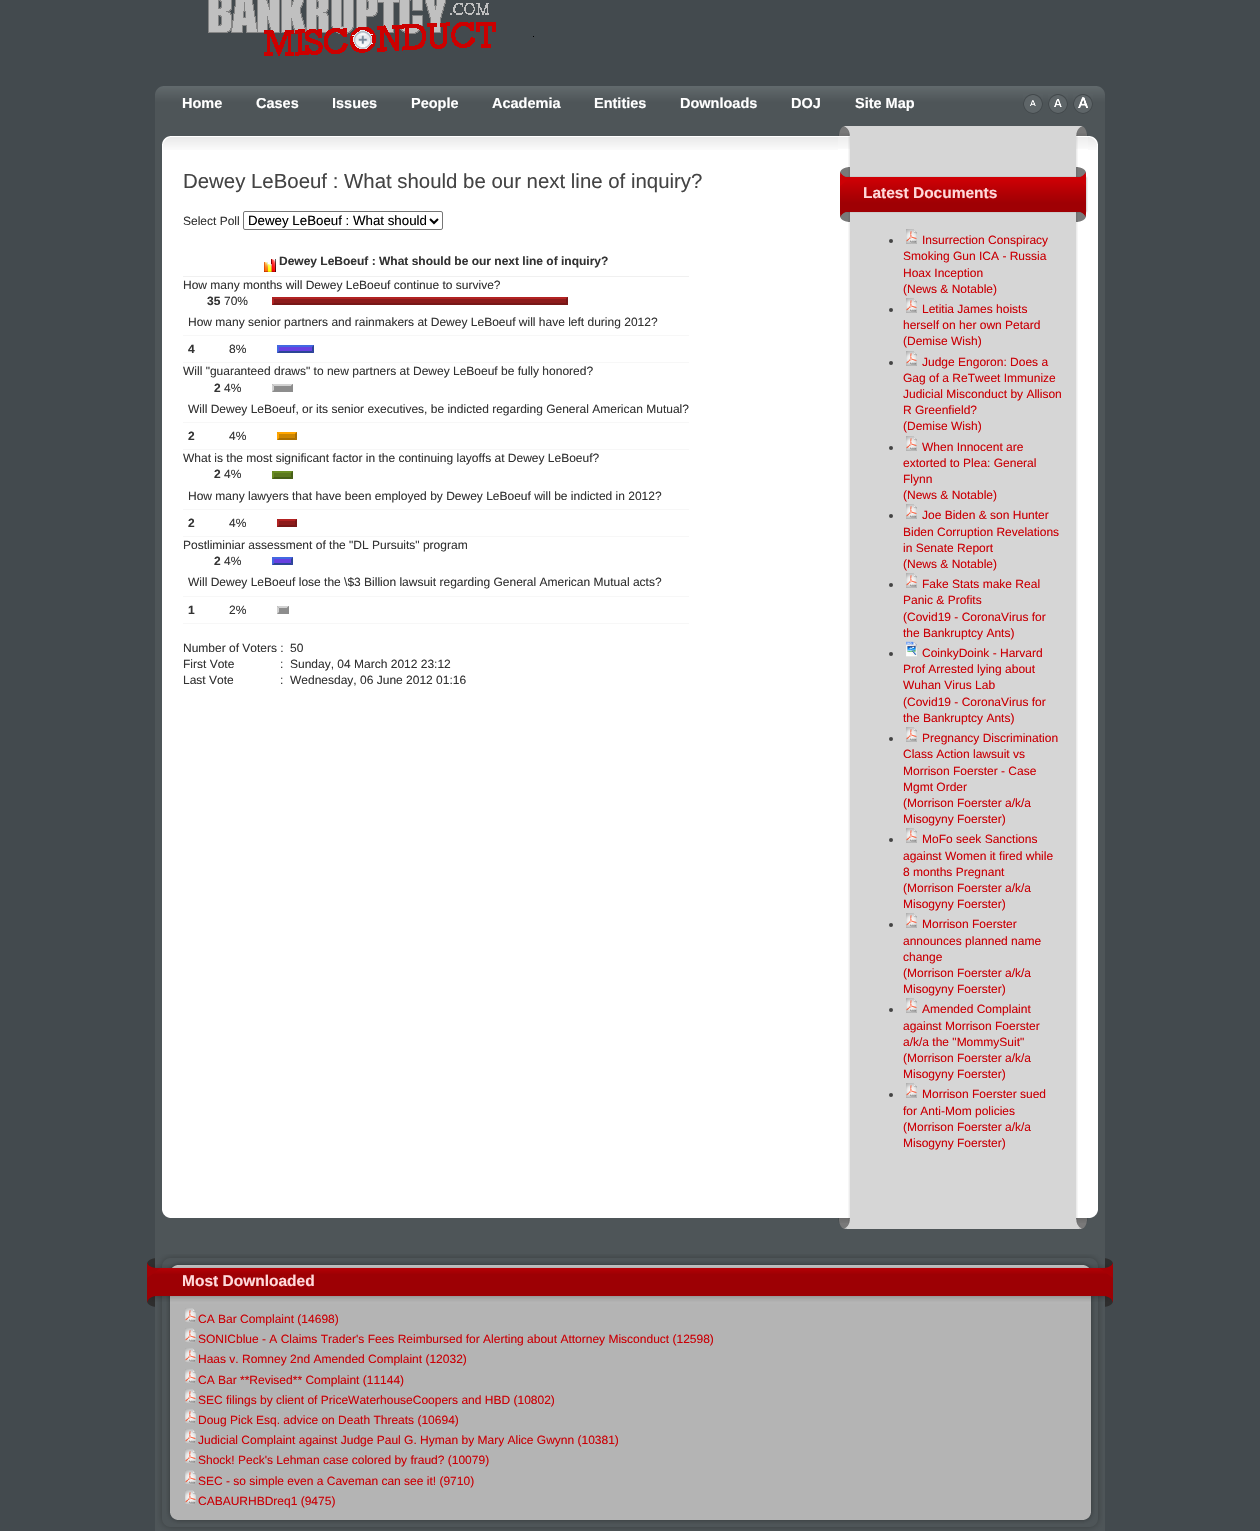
void draw(SkCanvas* c) {
SkPaint p;
p.setAntiAlias(true);
auto F=[&](const char* family, int weight, float size, bool italic = false){SkFontStyle style(weight, SkFontStyle::kNormal_Width,italic ? SkFontStyle::kItalic_Slant : SkFontStyle::kUpright_Slant);SkFont result(fontMgr->matchFamilyStyle(family, style), size);result.setSubpixel(true);return result;};
auto T=[&](const char* s, float x, float y, const SkFont& font){c->drawString(s, x, y, font, p);};
auto R=[&](float x, float y, float w, float h){c->drawRect(SkRect::MakeXYWH(x, y, w, h), p);};
auto I=[&](const char* path, float x, float y, float w, float h){auto image = SkImages::DeferredFromEncodedData(SkData::MakeFromFileName(path));c->drawImageRect(image, SkRect::MakeXYWH(x, y, w, h), SkSamplingOptions());};
auto P=[&](const char* data, bool evenOdd = false){SkPath result = *SkParsePath::FromSVGString(data);if (evenOdd) result.setFillType(SkPathFillType::kEvenOdd);return result;};
c->clear(0xff434a4e);
I("1.png",208,0,326,56);
p.setColor(0xff4e5558);
R(155,109,950,1145);
I("2.png",147,81,958,28);
I("3.png",147,86,16,23);
auto f1 = F("Liberation Sans",700,14.5);
p.setColor(0xffffffff);
T("Home",182,108,f1);
T("Cases",256,108,f1);
T("Issues",332,108,f1);
T("People",411,108,f1);
T("Academia",492,108,f1);
T("Entities",594,108,f1);
T("Downloads",680,108,f1);
T("DOJ",791,108,f1);
T("Site Map",855,108,f1);
I("4.png",1023,94,20,20);
I("5.png",1048,94,20,20);
I("6.png",1073,94,20,20);
R(162,150,936,1060);
I("7.png",162,1210,936,19);
I("8.png",162,1210,8,8);
I("9.png",162,126,936,24);
I("10.png",162,136,8,14);
auto f2 = F("Liberation Sans",400,20.4);
p.setColor(0xff444444);
T("Dewey LeBoeuf : What should be our next line of inquiry?",183,188,f2);
auto f3 = F("Liberation Sans",400,12);
p.setColor(0xff333333);
T("Select Poll",183,225,f3);
p.setStroke(true);
p.setStrokeWidth(1);
p.setColor(0xff767676);
c->drawRoundRect(SkRect::MakeXYWH(243.5,211.5,199,18),1.5,1.5,p);
p.setStrokeWidth(2);
p.setColor(0xff000000);
c->drawPath(P("M430 219l4 4l4-4"),p);
c->save();
c->clipRect(SkRect::MakeXYWH(248,212,178,17));
auto f4 = F("Liberation Sans",400,13.3);
p.setStroke(false);
T("Dewey LeBoeuf : What should",248,225,f4);
c->restore();
p.setColor(0xfff0f0f0);
R(183,276,506,1);
I("11.png",264,259,12,13);
auto f5 = F("Liberation Sans",700,12);
p.setColor(0xff333333);
T("Dewey LeBoeuf : What should be our next line of inquiry?",279,265,f5);
T("How many months will Dewey LeBoeuf continue to survive?",183,289,f3);
T("35",207,305,f5);
T("70%",224,305,f3);
p.setColor(0xff8d1b1b);
R(272,297,296,8);
p.setColor(0xffb22222);
c->drawPath(P("M272 297h296l-2 2h-292z"),p);
p.setColor(0xff771717);
c->drawPath(P("M568 297v8l-2-2v-4z"),p);
c->drawPath(P("M568 305h-296l2-2h292z"),p);
p.setColor(0xffb22222);
c->drawPath(P("M272 305v-8l2 2v4z"),p);
p.setColor(0xfff7f7f7);
R(183,335,506,1);
p.setColor(0xff333333);
T("How many senior partners and rainmakers at Dewey LeBoeuf will have left during 2012?",188,326,f3);
p.setColor(0xfff7f7f7);
R(183,362,506,1);
p.setColor(0xff333333);
T("4",188,353,f5);
T("8%",229,353,f3);
p.setColor(0xff6740e1);
R(277,345,37,8);
p.setColor(0xff4169e1);
c->drawPath(P("M277 345h37l-2 2h-33z"),p);
p.setColor(0xff2b4696);
c->drawPath(P("M314 345v8l-2-2v-4z"),p);
c->drawPath(P("M314 353h-37l2-2h33z"),p);
p.setColor(0xff4169e1);
c->drawPath(P("M277 353v-8l2 2v4z"),p);
p.setColor(0xff333333);
T("Will \"guaranteed draws\" to new partners at Dewey LeBoeuf be fully honored?",183,375,f3);
T("2",214,392,f5);
T("4%",224,392,f3);
p.setColor(0xff8d8d8d);
R(272,384,21,8);
p.setColor(0xffd2d2d2);
c->drawPath(P("M272 384h21l-2 2h-17z"),p);
p.setColor(0xff8c8c8c);
c->drawPath(P("M293 384v8l-2-2v-4z"),p);
p.setColor(0xffd2d2d2);
c->drawPath(P("M272 392v-8l2 2v4z"),p);
p.setColor(0xfff7f7f7);
R(183,422,506,1);
p.setColor(0xff333333);
T("Will Dewey LeBoeuf, or its senior executives, be indicted regarding General American Mutual?",188,413,f3);
p.setColor(0xfff7f7f7);
R(183,449,506,1);
p.setColor(0xff333333);
T("2",188,440,f5);
T("4%",229,440,f3);
p.setColor(0xffcc8500);
R(277,432,20,8);
p.setColor(0xffffa500);
c->drawPath(P("M277 432h20l-2 2h-16z"),p);
p.setColor(0xffaa6e00);
c->drawPath(P("M297 432v8l-2-2v-4z"),p);
c->drawPath(P("M297 440h-20l2-2h16z"),p);
p.setColor(0xffffa500);
c->drawPath(P("M277 440v-8l2 2v4z"),p);
p.setColor(0xff333333);
T("What is the most significant factor in the continuing layoffs at Dewey LeBoeuf?",183,462,f3);
T("2",214,478,f5);
T("4%",224,478,f3);
p.setColor(0xff5b781e);
R(272,471,21,8);
p.setColor(0xff6b8e23);
c->drawPath(P("M272 471h21l-2 2h-17z"),p);
p.setColor(0xff475f17);
c->drawPath(P("M293 471v8l-2-2v-4z"),p);
c->drawPath(P("M293 479h-21l2-2h17z"),p);
p.setColor(0xff6b8e23);
c->drawPath(P("M272 479v-8l2 2v4z"),p);
p.setColor(0xfff7f7f7);
R(183,509,506,1);
p.setColor(0xff333333);
T("How many lawyers that have been employed by Dewey LeBoeuf will be indicted in 2012?",188,500,f3);
p.setColor(0xfff7f7f7);
R(183,536,506,1);
p.setColor(0xff333333);
T("2",188,527,f5);
T("4%",229,527,f3);
p.setColor(0xff8d1b1b);
R(277,519,20,8);
p.setColor(0xffb22222);
c->drawPath(P("M277 519h20l-2 2h-16z"),p);
p.setColor(0xff771717);
c->drawPath(P("M297 519v8l-2-2v-4z"),p);
c->drawPath(P("M297 527h-20l2-2h16z"),p);
p.setColor(0xffb22222);
c->drawPath(P("M277 527v-8l2 2v4z"),p);
p.setColor(0xff333333);
T("Postliminiar assessment of the \"DL Pursuits\" program",183,549,f3);
T("2",214,565,f5);
T("4%",224,565,f3);
p.setColor(0xff6740e1);
R(272,557,21,8);
p.setColor(0xff4169e1);
c->drawPath(P("M272 557h21l-2 2h-17z"),p);
p.setColor(0xff2b4696);
c->drawPath(P("M293 557v8l-2-2v-4z"),p);
c->drawPath(P("M293 565h-21l2-2h17z"),p);
p.setColor(0xff4169e1);
c->drawPath(P("M272 565v-8l2 2v4z"),p);
p.setColor(0xfff7f7f7);
R(183,596,506,1);
p.setColor(0xff333333);
T("Will Dewey LeBoeuf lose the \\$3 Billion lawsuit regarding General American Mutual acts?",188,586,f3);
p.setColor(0xfff7f7f7);
R(183,623,506,1);
p.setColor(0xff333333);
T("1",188,614,f5);
T("2%",229,614,f3);
p.setColor(0xff8d8d8d);
R(277,606,12,8);
p.setColor(0xffd2d2d2);
c->drawPath(P("M277 606h12l-2 2h-8z"),p);
p.setColor(0xff8c8c8c);
c->drawPath(P("M289 606v8l-2-2v-4z"),p);
p.setColor(0xffd2d2d2);
c->drawPath(P("M277 614v-8l2 2v4z"),p);
p.setColor(0xff333333);
T("Number of Voters :",183,652,f3);
T("50",290,652,f3);
T("First Vote",183,668,f3);
T(":",280,668,f3);
T("Sunday, 04 March 2012 23:12",290,668,f3);
T("Last Vote",183,684,f3);
T(":",280,684,f3);
T("Wednesday, 06 June 2012 01:16",290,684,f3);
p.setColor(0xffd6d6d6);
R(850,126,226,1103);
I("12.png",838,149,12,1069);
I("13.png",1076,149,12,1039);
I("14.png",838,126,12,23);
I("15.png",1076,126,12,23);
I("16.png",850,167,238,90);
I("17.png",838,167,12,90);
auto f6 = F("Liberation Sans",700,15.5);
p.setColor(0xffffd9da);
T("Latest Documents",863,198,f6);
p.setColor(0xff444444);
c->drawCircle(891,241,2,p);
I("18.png",906,229,11,15);
p.setColor(0xffca0006);
T("Insurrection Conspiracy",922,244,f3);
T("Smoking Gun ICA - Russia",903,260,f3);
T("Hoax Inception",903,277,f3);
T("(News & Notable)",903,293,f3);
p.setColor(0xff444444);
c->drawCircle(891,310,2,p);
I("18.png",906,298,11,15);
p.setColor(0xffca0006);
T("Letitia James hoists",922,313,f3);
T("herself on her own Petard",903,329,f3);
T("(Demise Wish)",903,345,f3);
p.setColor(0xff444444);
c->drawCircle(891,363,2,p);
I("18.png",906,351,11,15);
p.setColor(0xffca0006);
T("Judge Engoron: Does a",922,366,f3);
T("Gag of a ReTweet Immunize",903,382,f3);
T("Judicial Misconduct by Allison",903,398,f3);
T("R Greenfield?",903,414,f3);
T("(Demise Wish)",903,430,f3);
p.setColor(0xff444444);
c->drawCircle(891,448,2,p);
I("18.png",906,436,11,15);
p.setColor(0xffca0006);
T("When Innocent are",922,451,f3);
T("extorted to Plea: General",903,467,f3);
T("Flynn",903,483,f3);
T("(News & Notable)",903,499,f3);
p.setColor(0xff444444);
c->drawCircle(891,516,2,p);
I("18.png",906,504,11,15);
p.setColor(0xffca0006);
T("Joe Biden & son Hunter",922,519,f3);
T("Biden Corruption Revelations",903,536,f3);
T("in Senate Report",903,552,f3);
T("(News & Notable)",903,568,f3);
p.setColor(0xff444444);
c->drawCircle(891,585,2,p);
I("18.png",906,573,11,15);
p.setColor(0xffca0006);
T("Fake Stats make Real",922,588,f3);
T("Panic & Profits",903,604,f3);
T("(Covid19 - CoronaVirus for",903,621,f3);
T("the Bankruptcy Ants)",903,637,f3);
p.setColor(0xff444444);
c->drawCircle(891,654,2,p);
I("19.png",906,641,11,16);
p.setColor(0xffca0006);
T("CoinkyDoink - Harvard",922,657,f3);
T("Prof Arrested lying about",903,673,f3);
T("Wuhan Virus Lab",903,689,f3);
T("(Covid19 - CoronaVirus for",903,706,f3);
T("the Bankruptcy Ants)",903,722,f3);
p.setColor(0xff444444);
c->drawCircle(891,739,2,p);
I("18.png",906,727,11,15);
p.setColor(0xffca0006);
T("Pregnancy Discrimination",922,742,f3);
T("Class Action lawsuit vs",903,758,f3);
T("Morrison Foerster - Case",903,775,f3);
T("Mgmt Order",903,791,f3);
T("(Morrison Foerster a/k/a",903,807,f3);
T("Misogyny Foerster)",903,823,f3);
p.setColor(0xff444444);
c->drawCircle(891,840,2,p);
I("18.png",906,828,11,15);
p.setColor(0xffca0006);
T("MoFo seek Sanctions",922,843,f3);
T("against Women it fired while",903,860,f3);
T("8 months Pregnant",903,876,f3);
T("(Morrison Foerster a/k/a",903,892,f3);
T("Misogyny Foerster)",903,908,f3);
p.setColor(0xff444444);
c->drawCircle(891,925,2,p);
I("18.png",906,913,11,15);
p.setColor(0xffca0006);
T("Morrison Foerster",922,928,f3);
T("announces planned name",903,945,f3);
T("change",903,961,f3);
T("(Morrison Foerster a/k/a",903,977,f3);
T("Misogyny Foerster)",903,993,f3);
p.setColor(0xff444444);
c->drawCircle(891,1010,2,p);
I("18.png",906,998,11,15);
p.setColor(0xffca0006);
T("Amended Complaint",922,1013,f3);
T("against Morrison Foerster",903,1030,f3);
T("a/k/a the \"MommySuit\"",903,1046,f3);
T("(Morrison Foerster a/k/a",903,1062,f3);
T("Misogyny Foerster)",903,1078,f3);
p.setColor(0xff444444);
c->drawCircle(891,1095,2,p);
I("18.png",906,1083,11,15);
p.setColor(0xffca0006);
T("Morrison Foerster sued",922,1098,f3);
T("for Anti-Mom policies",903,1115,f3);
T("(Morrison Foerster a/k/a",903,1131,f3);
T("Misogyny Foerster)",903,1147,f3);
I("20.png",1076,1188,12,41);
I("21.png",838,1218,12,11);
I("22.png",177,1254,907,53);
I("23.png",1084,1254,29,53);
I("24.png",147,1254,30,53);
p.setColor(0xffb4b4b4);
R(170,1307,921,202);
I("25.png",147,1307,23,202);
I("26.png",1091,1307,22,202);
p.setColor(0xffffd9da);
T("Most Downloaded",182,1286,f6);
I("27.png",185,1308,11,15);
p.setColor(0xffca0006);
T("CA Bar Complaint (14698)",198,1323,f3);
I("27.png",185,1328,11,15);
T("SONICblue - A Claims Trader's Fees Reimbursed for Alerting about Attorney Misconduct (12598)",198,1343,f3);
I("27.png",185,1348,11,15);
T("Haas v. Romney 2nd Amended Complaint (12032)",198,1363,f3);
I("27.png",185,1369,11,15);
T("CA Bar **Revised** Complaint (11144)",198,1384,f3);
I("27.png",185,1389,11,15);
T("SEC filings by client of PriceWaterhouseCoopers and HBD (10802)",198,1404,f3);
I("27.png",185,1409,11,15);
T("Doug Pick Esq. advice on Death Threats (10694)",198,1424,f3);
I("27.png",185,1429,11,15);
T("Judicial Complaint against Judge Paul G. Hyman by Mary Alice Gwynn (10381)",198,1444,f3);
I("27.png",185,1449,11,15);
T("Shock! Peck's Lehman case colored by fraud? (10079)",198,1464,f3);
I("27.png",185,1470,11,15);
T("SEC - so simple even a Caveman can see it! (9710)",198,1485,f3);
I("27.png",185,1490,11,15);
T("CABAURHBDreq1 (9475)",198,1505,f3);
I("28.png",177,1509,907,22);
I("29.png",1084,1509,29,22);
I("30.png",147,1509,30,22);
}
